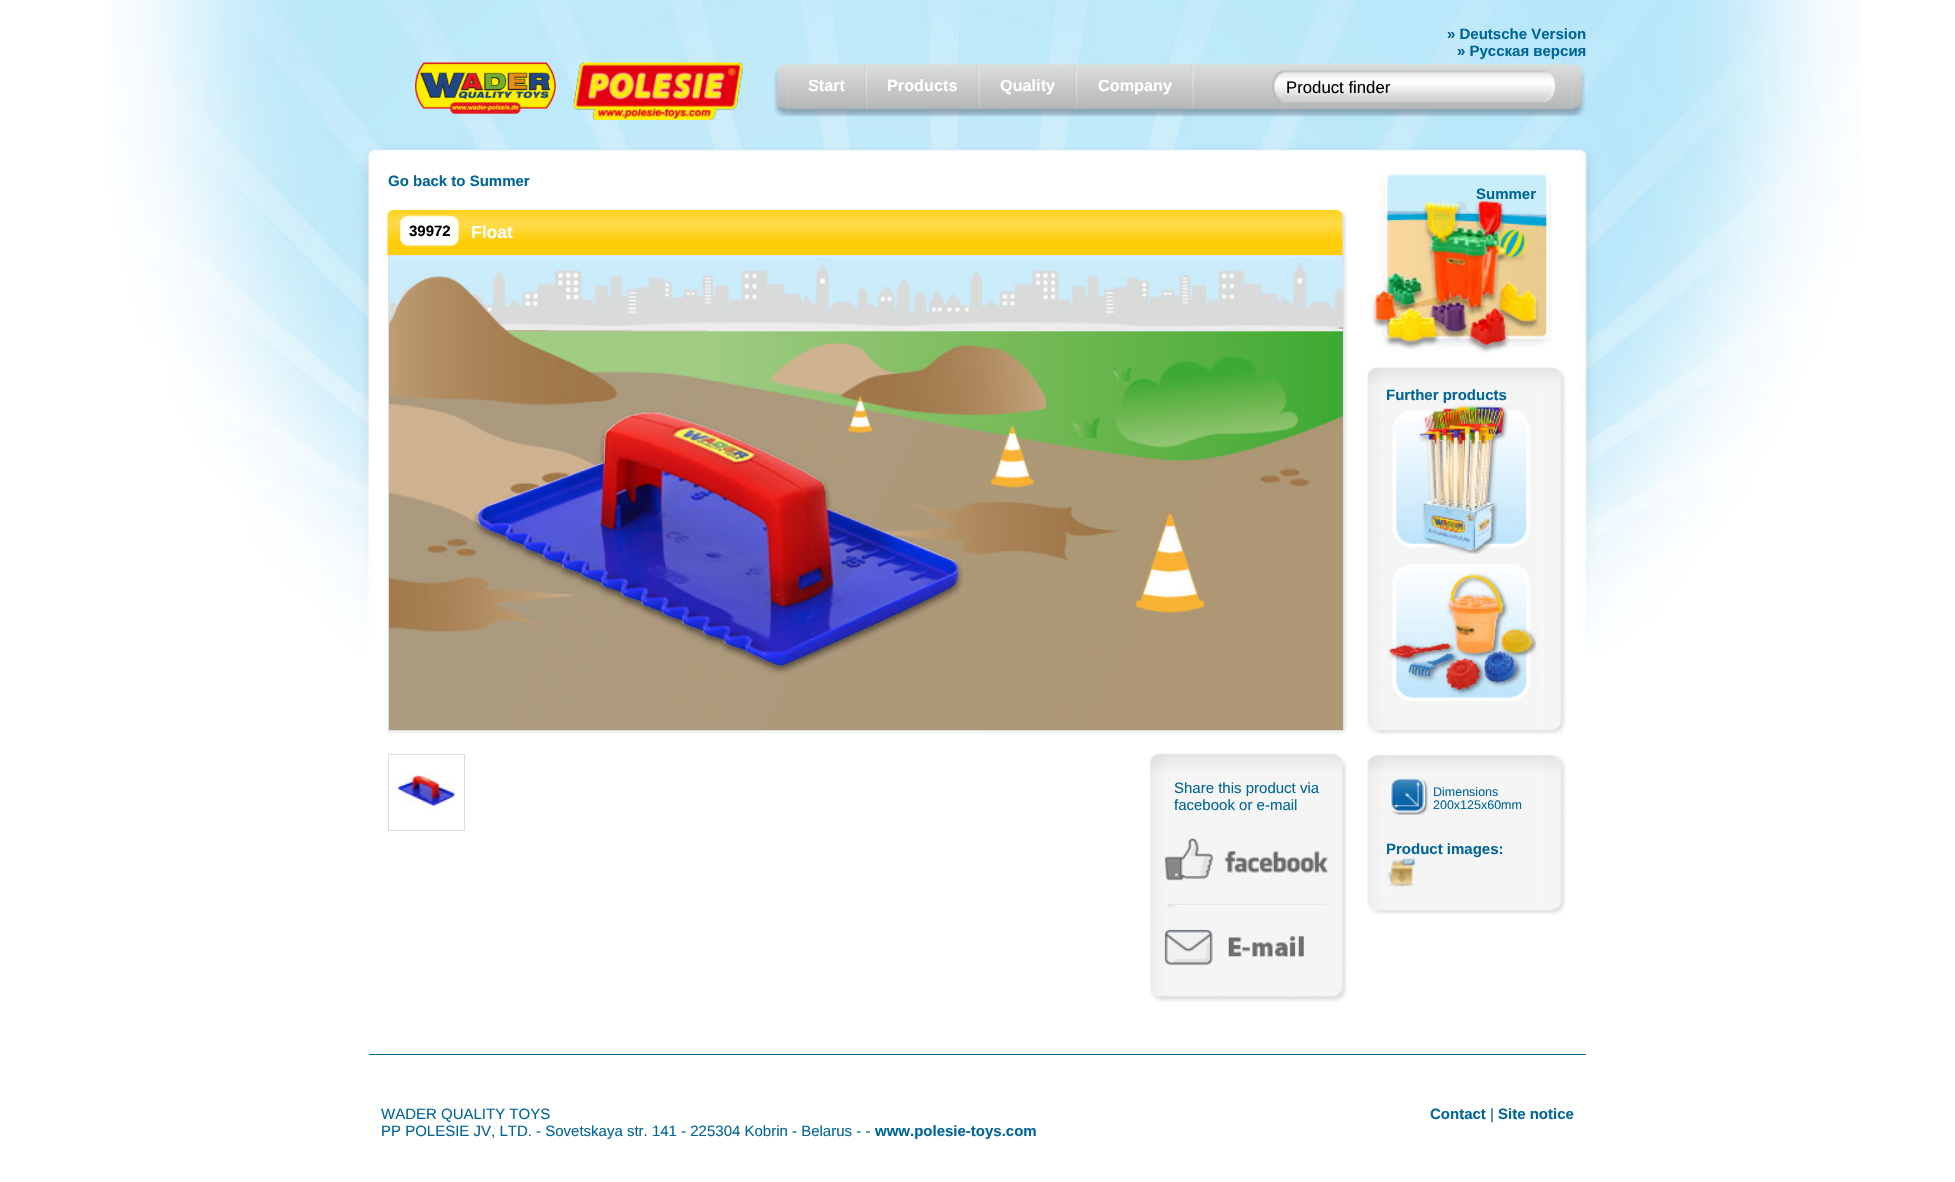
void draw(SkCanvas* c) {
SkPaint p;
p.setAntiAlias(true);
auto F=[&](const char* family, int weight, float size, bool italic = false){SkFontStyle style(weight, SkFontStyle::kNormal_Width,italic ? SkFontStyle::kItalic_Slant : SkFontStyle::kUpright_Slant);SkFont result(fontMgr->matchFamilyStyle(family, style), size);result.setSubpixel(true);return result;};
auto T=[&](const char* s, float x, float y, const SkFont& font){c->drawString(s, x, y, font, p);};
auto R=[&](float x, float y, float w, float h){c->drawRect(SkRect::MakeXYWH(x, y, w, h), p);};
auto I=[&](const char* path, float x, float y, float w, float h){auto image = SkImages::DeferredFromEncodedData(SkData::MakeFromFileName(path));c->drawImageRect(image, SkRect::MakeXYWH(x, y, w, h), SkSamplingOptions());};
c->clear(0xffffffff);
I("1.png",110,0,1750,650);
I("2.png",415,62,145,52);
I("3.png",573,62,170,58);
auto f1 = F("Liberation Sans",700,15);
p.setColor(0xff006699);
T("» Deutsche Version",1447,39,f1);
T("» Русская версия",1457,56,f1);
I("5.png",788,63,784,54);
I("4.png",774,63,15,54);
auto f2 = F("Liberation Sans",700,16.25);
p.setColor(0xffffffff);
T("Start",808,91,f2);
I("6.png",864,65,5,44);
T("Products",887,91,f2);
I("7.png",976,65,5,44);
T("Quality",1000,91,f2);
I("8.png",1074,65,5,44);
T("Company",1098,91,f2);
I("9.png",1190,65,5,44);
I("10.png",1271,70,300,39);
auto f3 = F("Liberation Sans",400,16.75);
p.setColor(0xff000000);
T("Product finder",1286,93,f3);
I("11.png",1571,63,15,54);
p.setColor(0xff006699);
T("Go back to Summer",388,186,f1);
I("12.png",387,210,13,45);
I("13.png",1325,210,22,45);
I("14.png",400,210,925,45);
I("15.png",400,215,59,32);
p.setColor(0xff000000);
T("39972",409,236,f1);
auto f4 = F("Liberation Sans",700,17.5);
p.setColor(0xffffffff);
T("Float",471,238,f4);
I("16.png",387,255,961,479);
I("17.png",389,256,954,474);
p.setStroke(true);
p.setStrokeWidth(1);
p.setColor(0xffe0e0e0);
c->drawRect(SkRect::MakeXYWH(388.5,255.5,955,475),p);
I("18.png",1367,172,185,181);
p.setStroke(false);
p.setColor(0xff006699);
T("Summer",1476,199,f1);
I("19.png",1367,367,20,20);
I("20.png",1542,367,24,20);
I("21.png",1386,367,157,19);
I("22.png",1367,386,19,326);
I("23.png",1542,386,24,326);
p.setColor(0xfff5f5f5);
R(1386,386,156,325);
p.setColor(0xff006699);
T("Further products",1386,400,f1);
I("24.png",1392,403,138,151);
I("25.png",1386,564,151,137);
I("26.png",1367,711,20,24);
I("27.png",1542,711,24,24);
I("28.png",1386,711,157,24);
I("29.png",1367,755,20,19);
I("30.png",1542,755,24,19);
I("31.png",1386,755,157,19);
I("32.png",1367,774,19,118);
I("33.png",1542,773,24,119);
p.setColor(0xfff5f5f5);
R(1386,774,156,117);
I("34.png",1390,777,38,38);
auto f5 = F("Liberation Sans",400,12.5);
p.setColor(0xff006699);
T("Dimensions",1433,796,f5);
T("200x125x60mm",1433,809,f5);
T("Product images:",1386,854,f1);
I("35.png",1387,858,29,29);
I("26.png",1367,891,20,24);
I("27.png",1542,891,24,24);
I("36.png",1386,891,157,24);
p.setColor(0xffdedede);
R(388,754,77,1);
R(464,754,1,77);
R(388,830,77,1);
R(388,754,1,77);
I("37.png",395,772,61,37);
I("38.png",1149,753,198,249);
auto f6 = F("Liberation Sans",400,15);
p.setColor(0xff006699);
T("Share this product via",1174,793,f6);
T("facebook or e-mail",1174,810,f6);
I("39.png",1164,838,164,67);
I("40.png",1164,905,140,61);
R(369,1054,1217,1);
T("WADER QUALITY TOYS",381,1119,f6);
T("Contact",1430,1119,f1);
T("|",1490,1119,f6);
T("Site notice",1498,1119,f1);
T("PP POLESIE JV, LTD. - Sovetskaya str. 141 - 225304 Kobrin - Belarus - -",381,1136,f6);
T("www.polesie-toys.com",875,1136,f1);
}
